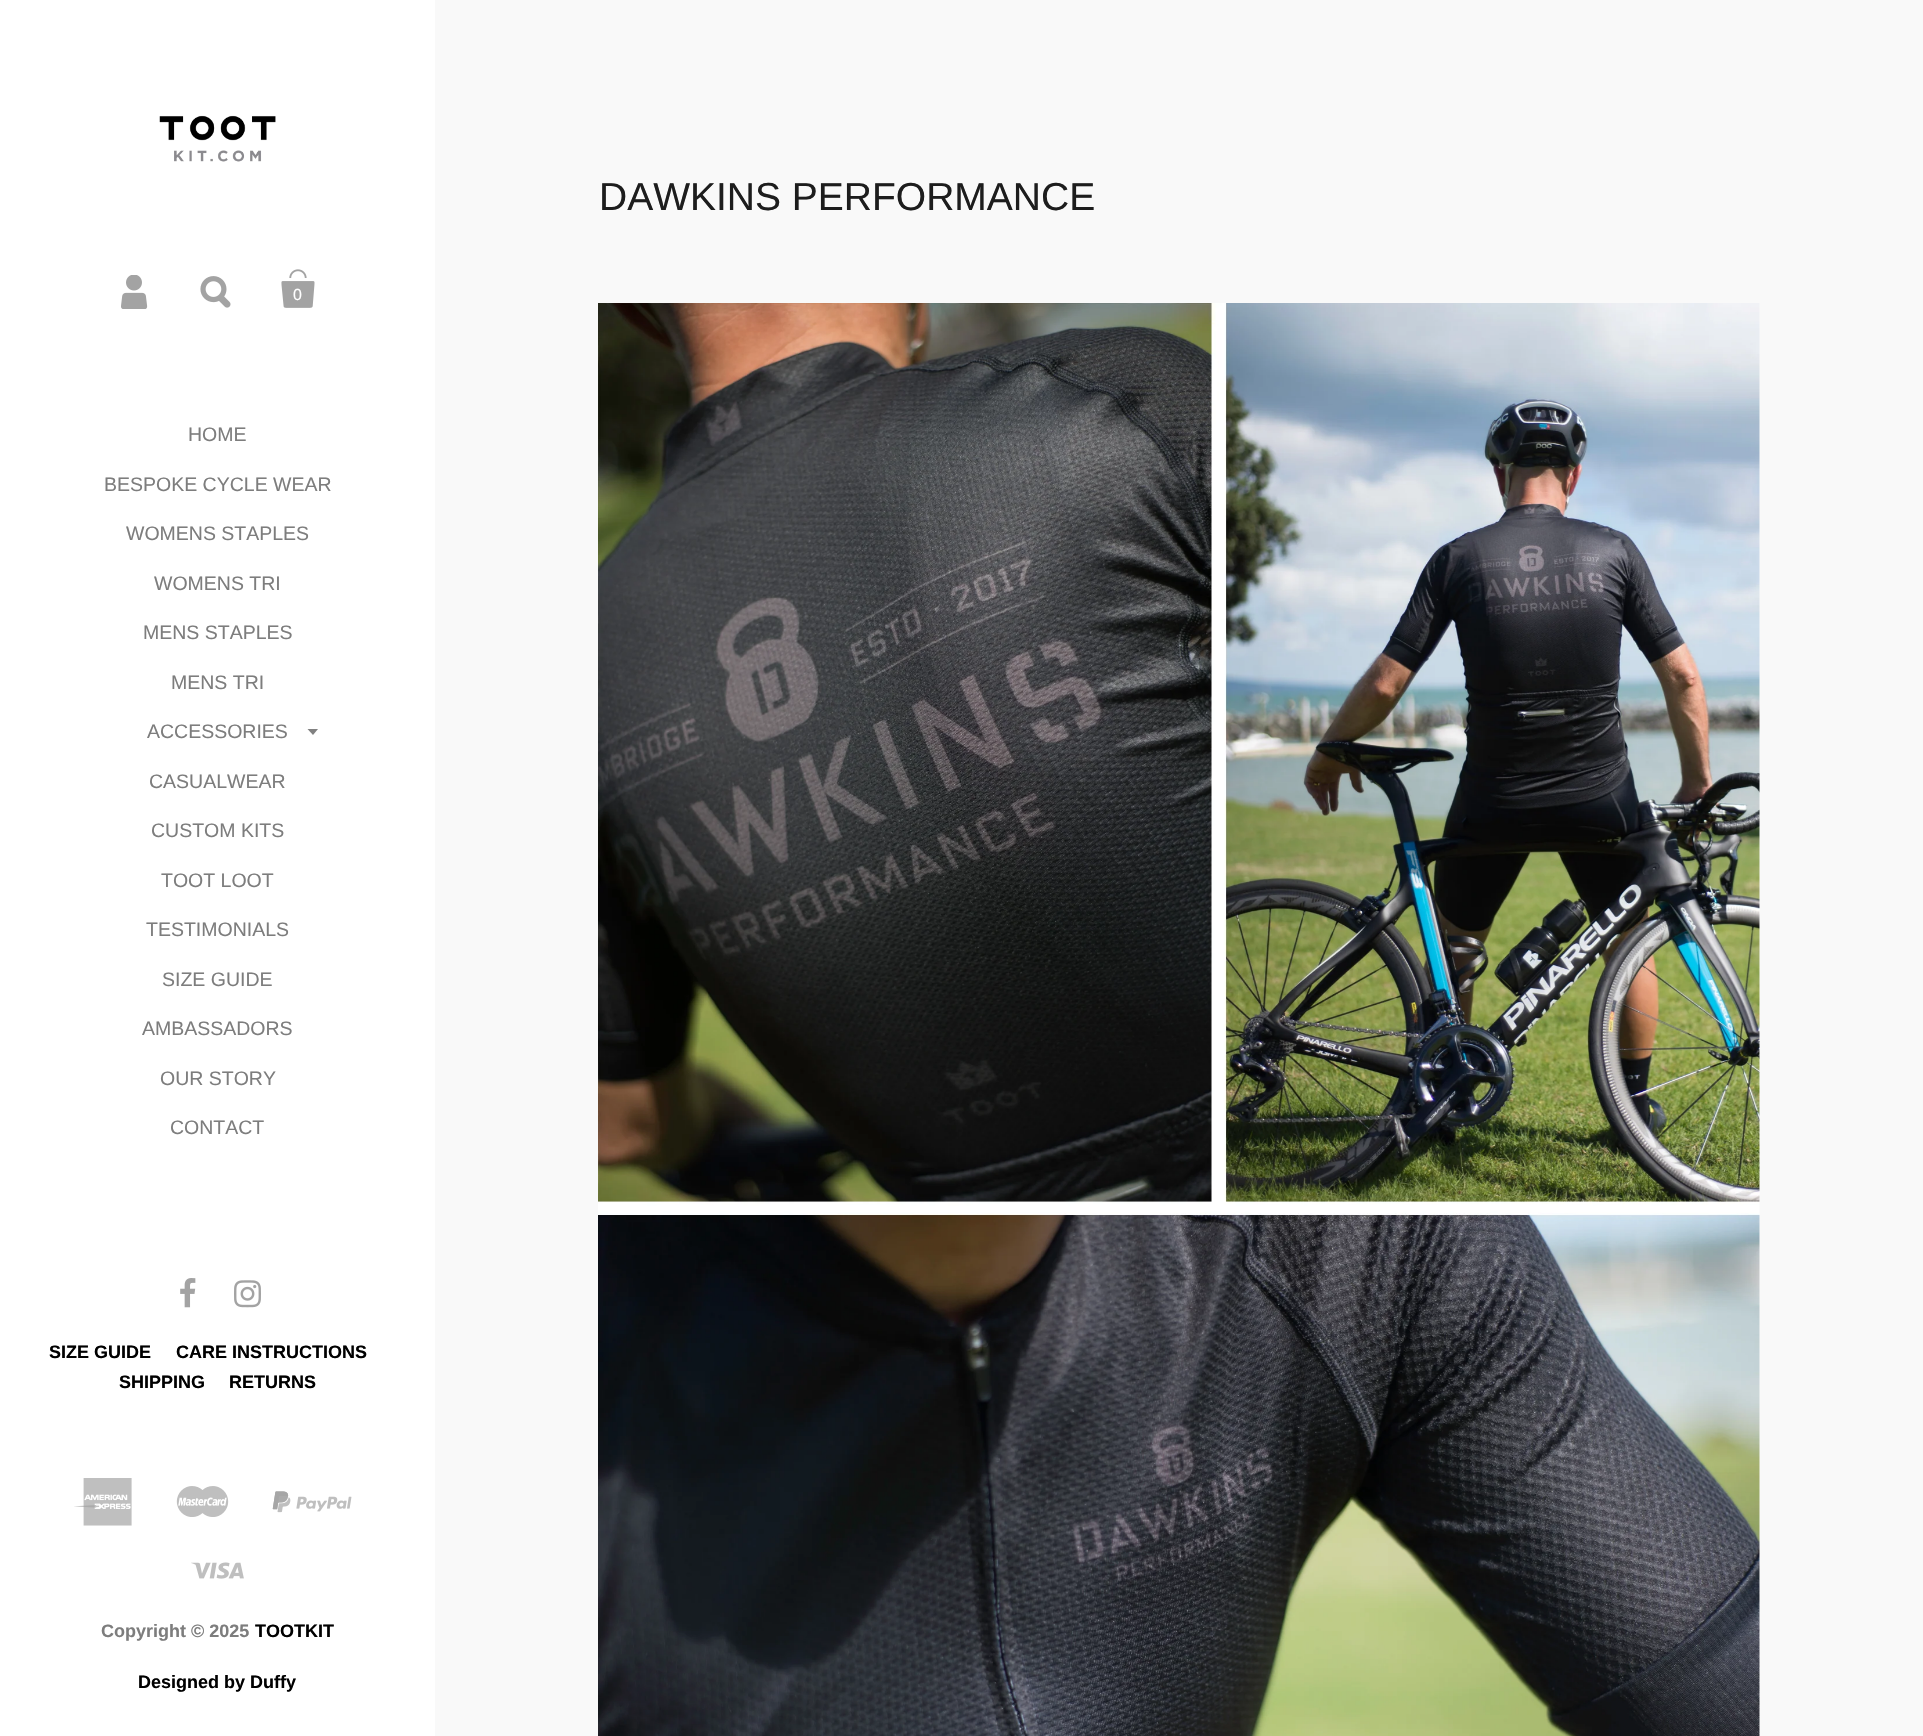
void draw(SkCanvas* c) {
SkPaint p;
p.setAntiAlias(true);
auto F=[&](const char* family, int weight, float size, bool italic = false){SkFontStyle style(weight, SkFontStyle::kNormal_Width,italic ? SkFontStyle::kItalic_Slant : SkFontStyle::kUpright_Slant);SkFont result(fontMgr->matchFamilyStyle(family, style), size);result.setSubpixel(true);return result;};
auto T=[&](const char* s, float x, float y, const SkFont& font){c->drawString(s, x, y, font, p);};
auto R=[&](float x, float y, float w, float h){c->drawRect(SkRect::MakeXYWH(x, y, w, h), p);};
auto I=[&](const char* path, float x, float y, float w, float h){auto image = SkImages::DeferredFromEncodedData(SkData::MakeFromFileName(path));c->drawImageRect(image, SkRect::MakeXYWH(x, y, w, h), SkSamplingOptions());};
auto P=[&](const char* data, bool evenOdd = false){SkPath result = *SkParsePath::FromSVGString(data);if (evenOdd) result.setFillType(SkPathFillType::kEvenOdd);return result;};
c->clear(0xfff9f9f9);
auto f1 = F("Liberation Sans",400,39);
p.setColor(0xff1d1d1d);
T("DAWKINS PERFORMANCE",599,210,f1);
I("1.png",598,303,1162,1433);
p.setColor(0xffffffff);
R(0,0,435,1736);
I("2.png",159,115,117,47);
I("3.png",121,275,27,34);
I("4.png",200,276,31,32);
I("5.png",281,269,34,39);
auto f2 = F("Liberation Sans",400,16);
T("0",293,300,f2);
auto f3 = F("Liberation Sans",400,19.5);
p.setColor(0xff7d7d7d);
T("HOME",188,441,f3);
T("BESPOKE CYCLE WEAR",104,491,f3);
T("WOMENS STAPLES",126,540,f3);
T("WOMENS TRI",154,590,f3);
T("MENS STAPLES",143,639,f3);
T("MENS TRI",171,689,f3);
T("ACCESSORIES",147,738,f3);
p.setColor(0xff818181);
c->drawPath(P("M318 729l-5 6l-5.5-6z"),p);
p.setColor(0xff7d7d7d);
T("CASUALWEAR",149,788,f3);
T("CUSTOM KITS",151,837,f3);
T("TOOT LOOT",161,887,f3);
T("TESTIMONIALS",146,936,f3);
T("SIZE GUIDE",162,986,f3);
T("AMBASSADORS",142,1035,f3);
T("OUR STORY",160,1085,f3);
T("CONTACT",170,1134,f3);
I("6.png",180,1278,16,30);
I("7.png",234,1280,27,28);
auto f4 = F("Liberation Sans",700,18);
p.setColor(0xff000000);
T("SIZE GUIDE",49,1358,f4);
T("CARE INSTRUCTIONS",176,1358,f4);
T("SHIPPING",119,1388,f4);
T("RETURNS",229,1388,f4);
I("8.png",74,1478,58,48);
I("9.png",176,1486,53,31);
I("10.png",272,1491,80,22);
I("11.png",191,1562,53,17);
p.setColor(0xff7d7d7d);
T("Copyright © 2025",101,1637,f4);
p.setColor(0xff000000);
T("TOOTKIT",255,1637,f4);
T("Designed by Duffy",138,1688,f4);
}
